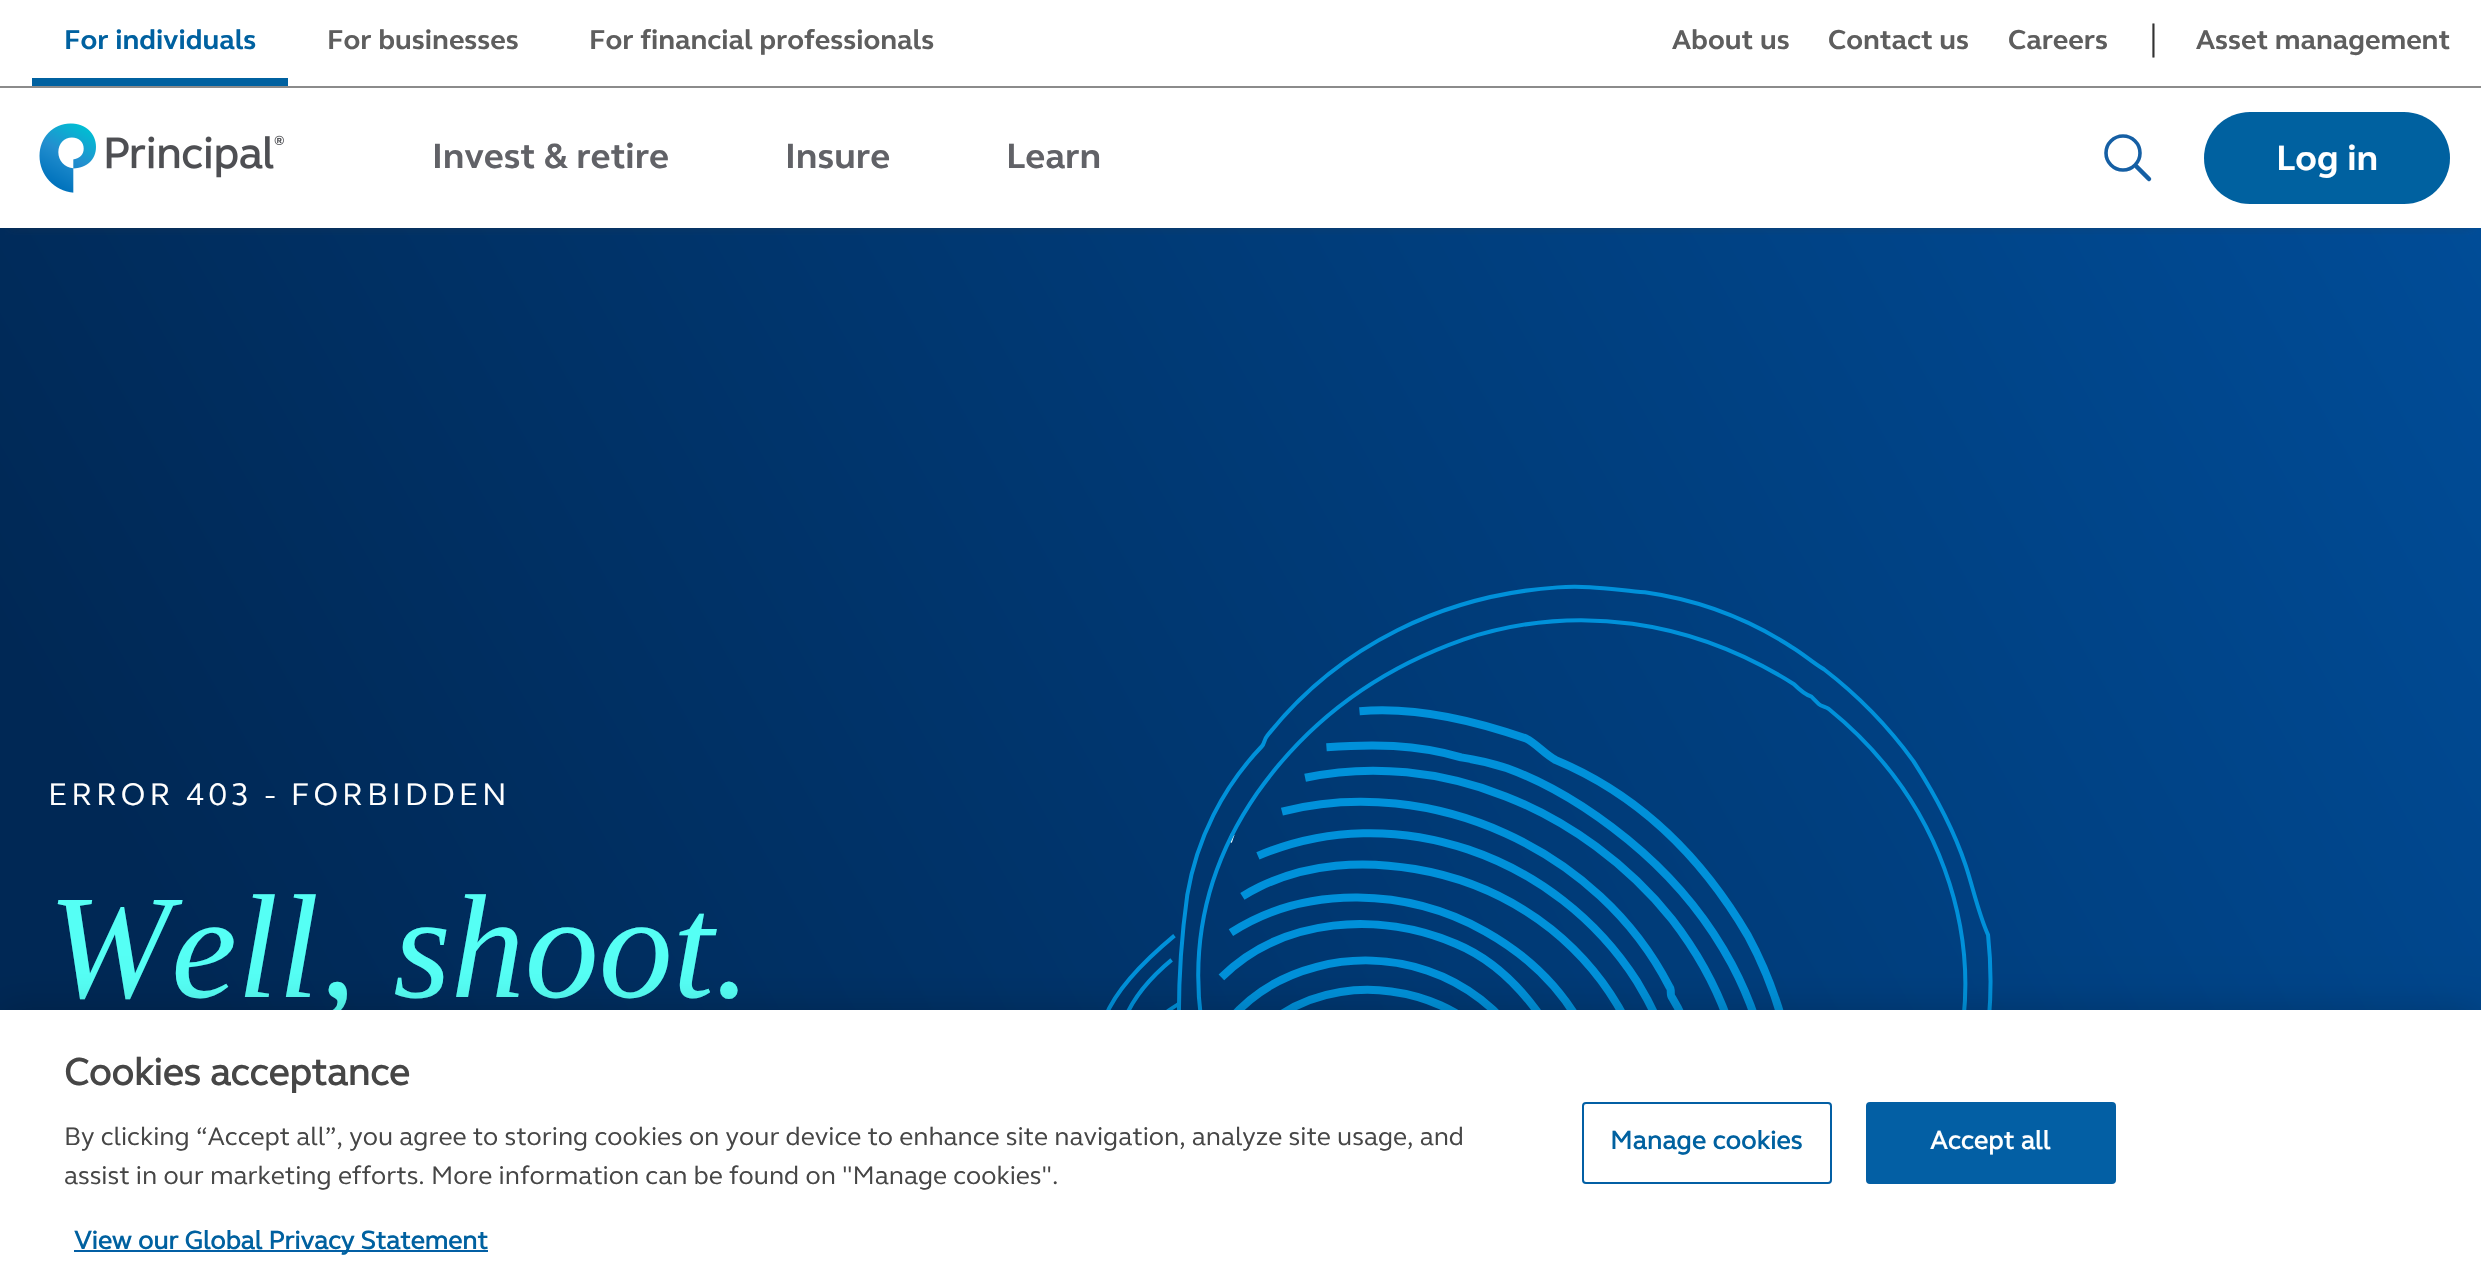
void draw(SkCanvas* c) {
SkPaint p;
p.setAntiAlias(true);
auto F=[&](const char* family, int weight, float size, bool italic = false){SkFontStyle style(weight, SkFontStyle::kNormal_Width,italic ? SkFontStyle::kItalic_Slant : SkFontStyle::kUpright_Slant);SkFont result(fontMgr->matchFamilyStyle(family, style), size);result.setSubpixel(true);return result;};
auto T=[&](const char* s, float x, float y, const SkFont& font){c->drawString(s, x, y, font, p);};
auto L=[&](const char* s, float x, float y, const SkFont& font, const SkPaint& ink, float letter, float word){std::vector<SkGlyphID> glyphs(font.countText(s, strlen(s), SkTextEncoding::kUTF8));std::vector<float> xs(glyphs.size());font.textToGlyphs(s, strlen(s), SkTextEncoding::kUTF8, glyphs);font.getXPos(glyphs, xs, x);float extra = 0;for (size_t i = 0; i < glyphs.size(); i++) {xs[i] += extra;extra += letter + word * (glyphs[i] == font.unicharToGlyph(' '));}c->drawTextBlob(SkTextBlob::MakeFromPosHGlyphs(glyphs, xs, y, font), 0, 0, ink);};
auto R=[&](float x, float y, float w, float h){c->drawRect(SkRect::MakeXYWH(x, y, w, h), p);};
auto Q=[&](float x, float y, float w, float h, float radius){c->drawRoundRect(SkRect::MakeXYWH(x, y, w, h), radius, radius, p);};
auto I=[&](const char* path, float x, float y, float w, float h){auto image = SkImages::DeferredFromEncodedData(SkData::MakeFromFileName(path));c->drawImageRect(image, SkRect::MakeXYWH(x, y, w, h), SkSamplingOptions());};
auto P=[&](const char* data, bool evenOdd = false){SkPath result = *SkParsePath::FromSVGString(data);if (evenOdd) result.setFillType(SkPathFillType::kEvenOdd);return result;};
c->clear(0xffffffff);
p.setColor(0xff8b8b8b);
R(0,86,2481,2);
p.setColor(0xff0061a0);
R(32,78,256,8);
auto f1 = F("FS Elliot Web",700,28);
T("For individuals",64,49,f1);
p.setColor(0xff5e5e5e);
T("For businesses",327,49,f1);
T("For financial professionals",589,49,f1);
T("About us",1672,49,f1);
T("Contact us",1828,49,f1);
T("Careers",2008,49,f1);
auto f2 = F("Liberation Sans",400,28);
p.setColor(0xff333333);
T("│",2146,49,f2);
p.setColor(0xff5e5e5e);
T("Asset management",2196,49,f1);
{
const SkColor colors[] = {0xff002855,0xff004c97};
const float stops[] = {.25,1};
const SkPoint ends[] = {{-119,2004}, {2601,434}};
p.setShader(SkGradientShader::MakeLinear(ends, colors, stops, 2, SkTileMode::kClamp));
p.setAlpha(255);
}
R(0,228,2481,782);
c->save();
c->clipRect(SkRect::MakeXYWH(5,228,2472,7));
p.setShader(nullptr);
p.setColor(0x40333333);
p.setMaskFilter(SkMaskFilter::MakeBlur(kNormal_SkBlurStyle, 5));
c->drawRect(SkRect::MakeXYWH(10,108,2462,120),p);
p.setMaskFilter(nullptr);
c->restore();
I("1.png",39,123,245,70);
auto f3 = F("FS Elliot Web",700,36);
p.setColor(0xff616267);
T("Invest & retire",432,168,f3);
T("Insure",785,168,f3);
T("Learn",1006,168,f3);
p.setStroke(true);
p.setStrokeWidth(3.6);
p.setColor(0xff155fa4);
c->drawCircle(2123,153,17,p);
p.setStrokeWidth(4.5);
p.setStrokeCap(SkPaint::kRound_Cap);
c->drawPath(P("M2136.5 166.5l12.5 12.5"),p);
p.setStroke(false);
p.setColor(0xff0061a0);
Q(2204,112,246,92,46);
p.setColor(0xffffffff);
T("Log in",2276,170,f3);
auto f4 = F("FS Elliot Web",400,32);
L("ERROR 403 - FORBIDDEN",48,805,f4,p,4,0);
auto f5 = F("Liberation Serif",400,148,true);
p.setColor(0xff55fff5);
T("Well, shoot.",48,997,f5);
I("2.png",1106,584,887,426);
p.setColor(0x33000000);
p.setMaskFilter(SkMaskFilter::MakeBlur(kNormal_SkBlurStyle, 18));
c->drawRect(SkRect::MakeXYWH(0,1010,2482,272),p);
p.setMaskFilter(nullptr);
p.setColor(0xffffffff);
R(0,1010,2481,272);
auto f6 = F("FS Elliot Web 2",700,38.5);
p.setColor(0xff464646);
T("Cookies acceptance",64,1085,f6);
auto f7 = F("FS Elliot Web",400,26.02);
T("By clicking “Accept all”, you agree to storing cookies on your device to enhance site navigation, analyze site usage, and",64,1145,f7);
T("assist in our marketing efforts. More information can be found on \"Manage cookies\".",64,1184,f7);
p.setColor(0xff035fa4);
R(74,1250,414,2);
auto f8 = F("FS Elliot Web 2",700,26.02);
p.setColor(0xff0061a0);
T("View our Global Privacy Statement",74,1249,f8);
p.setStroke(true);
p.setStrokeWidth(2);
p.setStrokeCap(SkPaint::kButt_Cap);
p.setColor(0xff035fa4);
c->drawRoundRect(SkRect::MakeXYWH(1583,1103,248,80),3,3,p);
p.setStroke(false);
p.setColor(0xff0061a0);
L("Manage cookies",1610,1149,f8,p,.25,0);
p.setColor(0xff035fa4);
c->drawRoundRect(SkRect::MakeXYWH(1867,1103,248,80),3,3,p);
p.setStroke(true);
c->drawRoundRect(SkRect::MakeXYWH(1867,1103,248,80),3,3,p);
p.setStroke(false);
p.setColor(0xffffffff);
L("Accept all",1930,1149,f8,p,.25,0);
}
